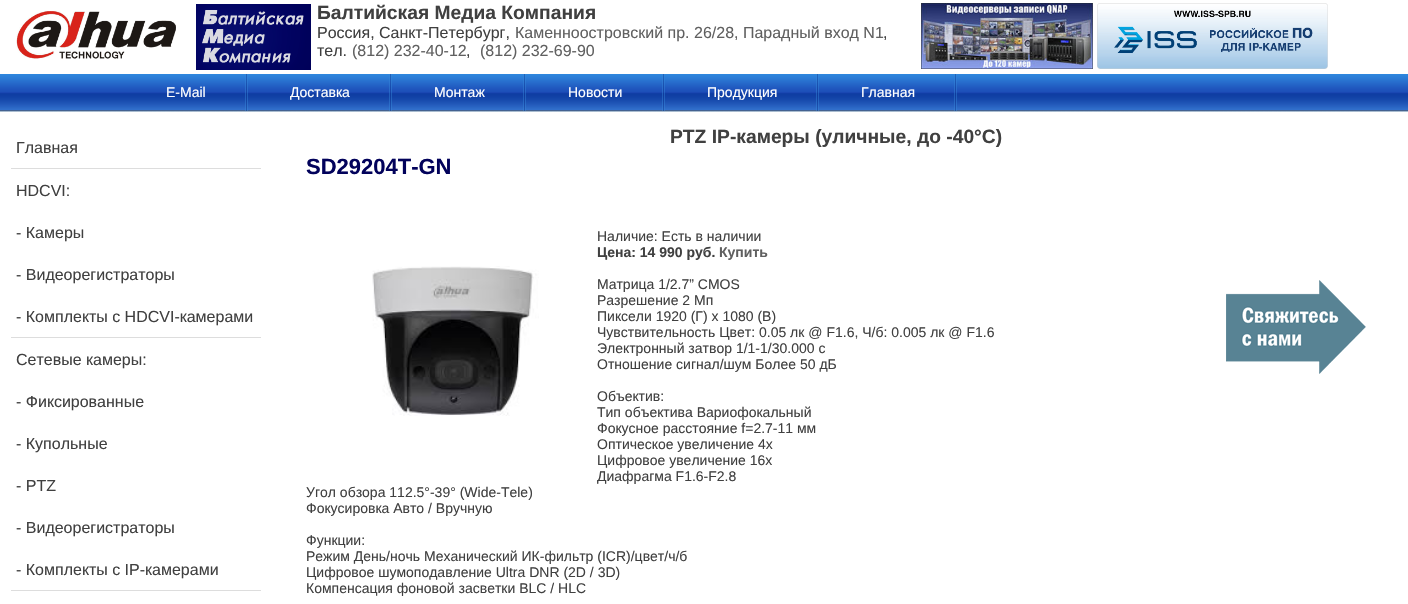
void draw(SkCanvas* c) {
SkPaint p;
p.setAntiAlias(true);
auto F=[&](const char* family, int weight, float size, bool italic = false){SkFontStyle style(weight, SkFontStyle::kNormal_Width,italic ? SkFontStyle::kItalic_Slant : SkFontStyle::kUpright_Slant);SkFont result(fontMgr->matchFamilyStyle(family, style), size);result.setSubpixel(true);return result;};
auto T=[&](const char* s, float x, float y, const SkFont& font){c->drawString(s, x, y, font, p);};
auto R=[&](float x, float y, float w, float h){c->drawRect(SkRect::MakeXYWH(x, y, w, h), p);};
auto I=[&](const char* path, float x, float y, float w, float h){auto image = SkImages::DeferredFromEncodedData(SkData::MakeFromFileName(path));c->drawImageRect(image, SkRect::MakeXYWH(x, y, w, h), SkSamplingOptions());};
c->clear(0xffffffff);
I("1.png",16,11,160,48);
I("2.png",196,4,115,66);
auto f1 = F("Liberation Sans",700,19.25);
p.setColor(0xff404040);
T("Балтийская Медиа Компания",317,19,f1);
auto f2 = F("Liberation Sans",400,16);
T("Россия, Санкт-Петербург,",317,38,f2);
p.setColor(0xff606060);
T("Каменноостровский пр. 26/28, Парадный вход N1",515,38,f2);
p.setColor(0xff404040);
T(",",883,38,f2);
T("тел.",317,56,f2);
p.setColor(0xff606060);
T("(812) 232-40-12",352,56,f2);
p.setColor(0xff404040);
T(",",466,56,f2);
p.setColor(0xff606060);
T("(812) 232-69-90",480,56,f2);
I("3.png",921,3,172,66);
I("4.png",1097,3,231,66);
I("5.png",0,74,1408,38);
I("6.png",245,74,3,37);
auto f3 = F("Liberation Sans",400,14);
p.setColor(0xffffffff);
T("E-Mail",166,97,f3);
I("6.png",389,74,3,37);
T("Доставка",290,97,f3);
I("6.png",523,74,3,37);
T("Монтаж",434,97,f3);
I("6.png",662,74,3,37);
T("Новости",568,97,f3);
I("6.png",816,74,3,37);
T("Продукция",707,97,f3);
I("6.png",954,74,3,37);
T("Главная",861,97,f3);
p.setColor(0xffdddddd);
R(11,168,250,1);
p.setColor(0xff404040);
T("Главная",16,153,f2);
T("HDCVI:",16,196,f2);
T("- Камеры",16,238,f2);
T("- Видеорегистраторы",16,280,f2);
p.setColor(0xffdddddd);
R(11,337,250,1);
p.setColor(0xff404040);
T("- Комплекты с HDCVI-камерами",16,322,f2);
T("Сетевые камеры:",16,365,f2);
T("- Фиксированные",16,407,f2);
T("- Купольные",16,449,f2);
T("- PTZ",16,491,f2);
T("- Видеорегистраторы",16,533,f2);
p.setColor(0xffdddddd);
R(11,590,250,1);
p.setColor(0xff404040);
T("- Комплекты с IP-камерами",16,575,f2);
T("PTZ IP-камеры (уличные, до -40°C)",670,143,f1);
auto f4 = F("Liberation Sans",700,22);
p.setColor(0xff02025b);
T("SD29204T-GN",306,174,f4);
p.setColor(0xff404040);
T("Наличие: Есть в наличии",597,241,f3);
auto f5 = F("Liberation Sans",700,14);
T("Цена: 14 990 руб.",597,257,f5);
p.setColor(0xff606060);
T("Купить",719,257,f5);
I("7.png",372,266,167,150);
p.setColor(0xff404040);
T("Матрица 1/2.7” CMOS",597,289,f3);
I("8.png",1226,280,140,94);
T("Разрешение 2 Мп",597,305,f3);
T("Пиксели 1920 (Г) x 1080 (В)",597,321,f3);
T("Чувствительность Цвет: 0.05 лк @ F1.6, Ч/б: 0.005 лк @ F1.6",597,337,f3);
T("Электронный затвор 1/1-1/30.000 с",597,353,f3);
T("Отношение сигнал/шум Более 50 дБ",597,369,f3);
T("Объектив:",597,401,f3);
T("Тип объектива Вариофокальный",597,417,f3);
T("Фокусное расстояние f=2.7-11 мм",597,433,f3);
T("Оптическое увеличение 4x",597,449,f3);
T("Цифровое увеличение 16х",597,465,f3);
T("Диафрагма F1.6-F2.8",597,481,f3);
T("Угол обзора 112.5°-39° (Wide-Tele)",306,497,f3);
T("Фокусировка Авто / Вручную",306,513,f3);
T("Функции:",306,545,f3);
T("Режим День/ночь Механический ИК-фильтр (ICR)/цвет/ч/б",306,561,f3);
T("Цифровое шумоподавление Ultra DNR (2D / 3D)",306,577,f3);
T("Компенсация фоновой засветки BLC / HLC",306,593,f3);
}
